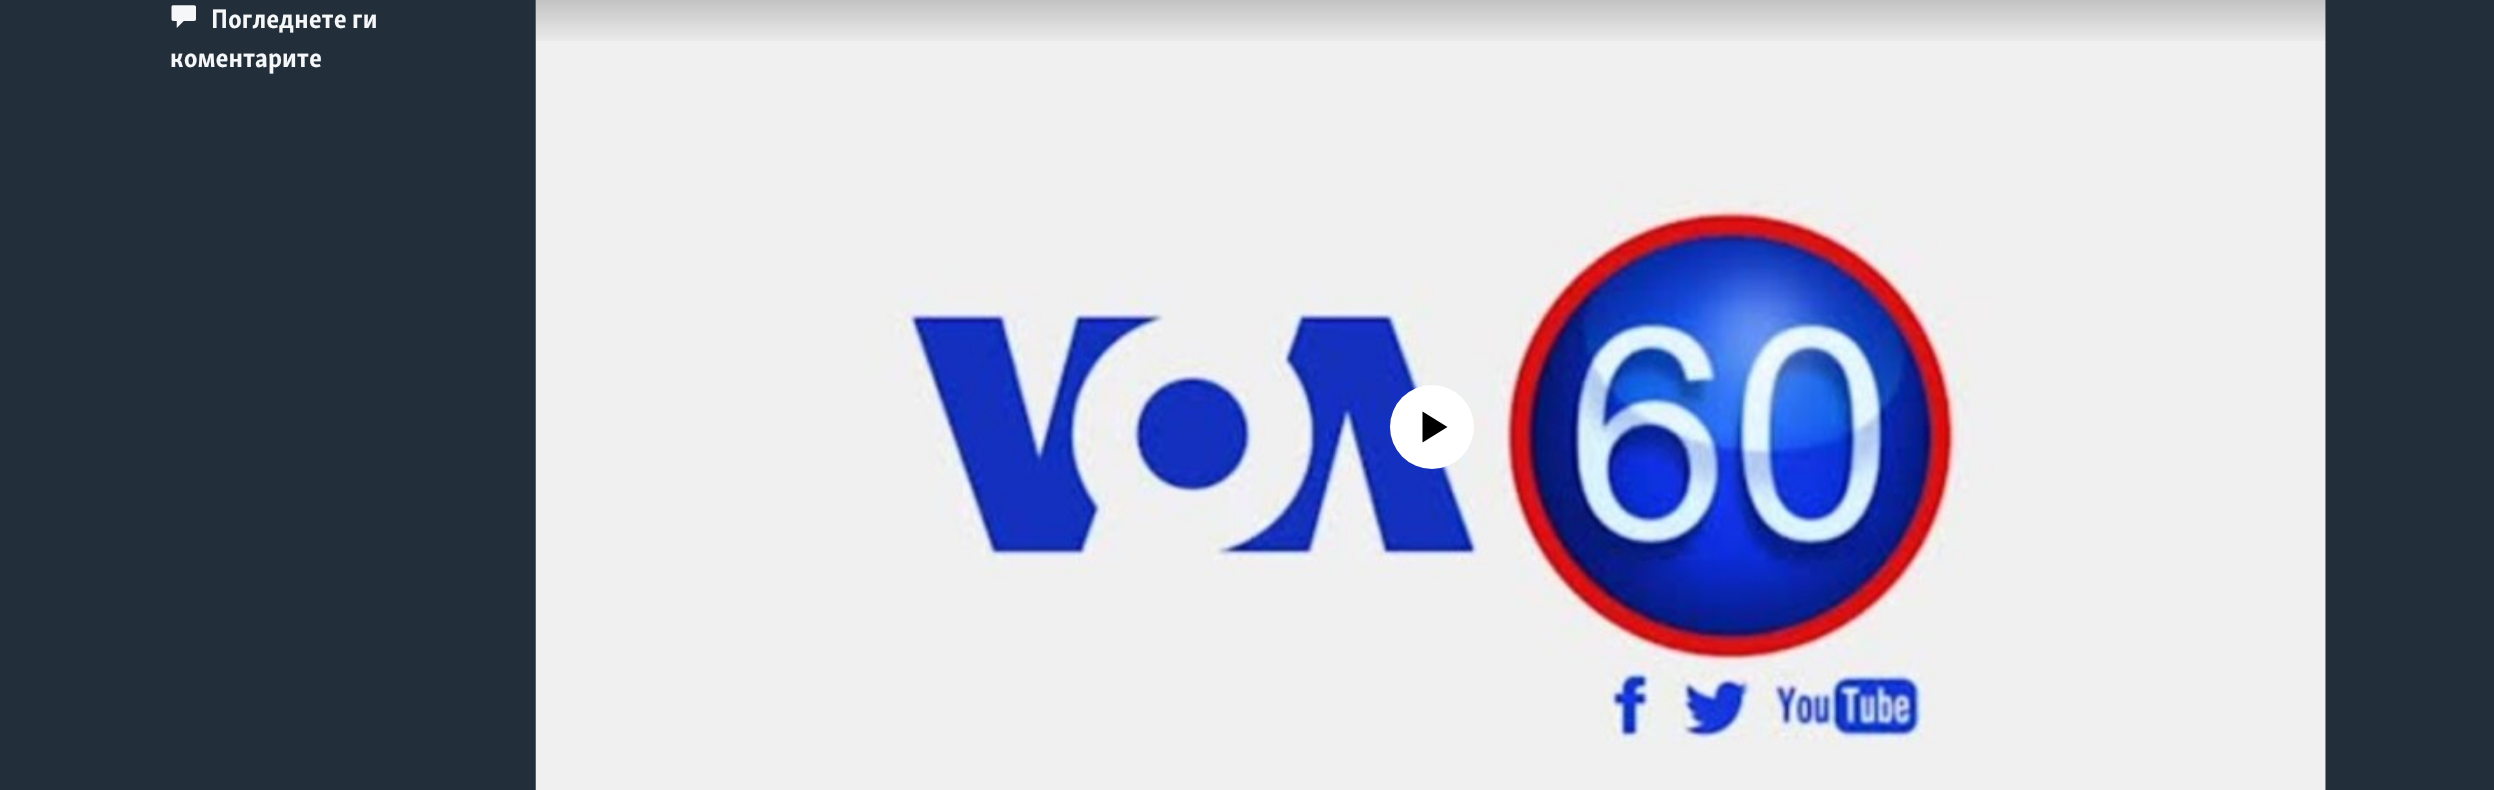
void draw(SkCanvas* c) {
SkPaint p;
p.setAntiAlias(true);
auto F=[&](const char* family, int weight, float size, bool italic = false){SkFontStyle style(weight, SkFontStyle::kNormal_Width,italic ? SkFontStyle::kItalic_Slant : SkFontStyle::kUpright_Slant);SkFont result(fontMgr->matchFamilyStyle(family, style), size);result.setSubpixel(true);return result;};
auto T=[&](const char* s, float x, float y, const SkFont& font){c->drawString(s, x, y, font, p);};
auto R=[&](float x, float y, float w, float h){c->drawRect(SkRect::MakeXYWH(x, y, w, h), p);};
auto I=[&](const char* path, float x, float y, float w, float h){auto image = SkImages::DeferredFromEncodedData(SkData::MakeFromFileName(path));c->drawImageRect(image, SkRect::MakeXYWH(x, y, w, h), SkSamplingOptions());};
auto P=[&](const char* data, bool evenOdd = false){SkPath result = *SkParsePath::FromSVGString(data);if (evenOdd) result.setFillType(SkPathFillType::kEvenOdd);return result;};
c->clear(0xff222f3a);
I("1.png",171,5,25,23);
auto f1 = F("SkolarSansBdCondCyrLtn",700,27.5);
p.setColor(0xfff6f7f8);
T("Погледнете ги",211,28,f1);
T("коментарите",170,67,f1);
p.setColor(0xff000000);
R(2325,0,1,790);
I("2.png",535,0,1791,790);
{
const SkColor colors[] = {0x80000000,0x00000000};
const float stops[] = {0,1};
const SkPoint ends[] = {{1431,-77}, {1431,46}};
p.setShader(SkGradientShader::MakeLinear(ends, colors, stops, 2, SkTileMode::kClamp));
p.setAlpha(255);
}
R(536,0,1790,41);
p.setShader(nullptr);
p.setColor(0xffffffff);
c->drawCircle(1432,427,42,p);
p.setColor(0xff000000);
c->drawPath(P("M1422.5 442.5l25-15.5l-25-15.5z"),p);
}
